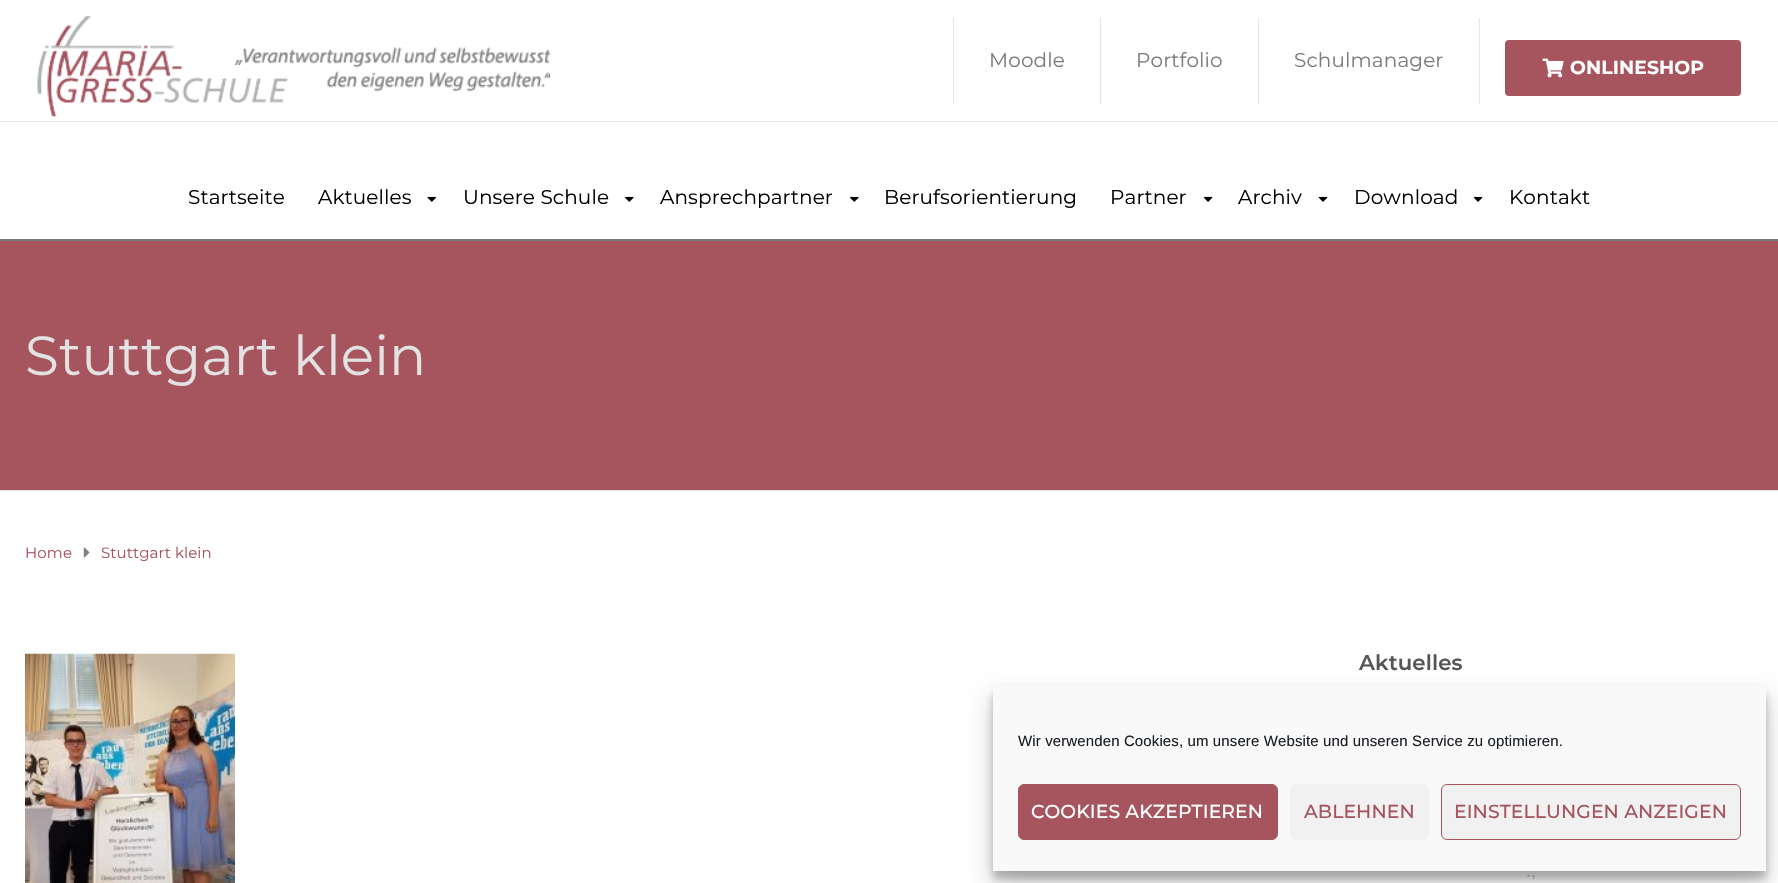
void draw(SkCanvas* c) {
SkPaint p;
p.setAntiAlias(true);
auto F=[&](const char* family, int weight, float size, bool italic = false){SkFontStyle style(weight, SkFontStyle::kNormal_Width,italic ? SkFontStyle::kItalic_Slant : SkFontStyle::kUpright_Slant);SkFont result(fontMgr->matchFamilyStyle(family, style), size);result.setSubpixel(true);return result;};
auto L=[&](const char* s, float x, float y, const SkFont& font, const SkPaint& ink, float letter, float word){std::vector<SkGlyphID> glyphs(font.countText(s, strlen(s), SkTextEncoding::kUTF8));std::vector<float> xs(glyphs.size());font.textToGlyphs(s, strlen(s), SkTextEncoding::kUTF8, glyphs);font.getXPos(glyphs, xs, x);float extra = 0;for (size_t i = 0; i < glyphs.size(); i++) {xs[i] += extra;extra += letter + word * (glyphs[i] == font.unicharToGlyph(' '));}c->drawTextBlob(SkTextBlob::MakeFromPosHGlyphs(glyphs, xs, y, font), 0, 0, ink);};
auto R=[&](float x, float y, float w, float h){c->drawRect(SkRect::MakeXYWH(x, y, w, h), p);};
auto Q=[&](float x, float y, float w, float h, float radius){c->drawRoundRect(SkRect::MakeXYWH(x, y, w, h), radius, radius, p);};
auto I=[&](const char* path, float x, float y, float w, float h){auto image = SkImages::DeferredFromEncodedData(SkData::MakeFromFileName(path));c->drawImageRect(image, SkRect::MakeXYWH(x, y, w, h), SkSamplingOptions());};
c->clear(0xffffffff);
p.setColor(0xff7a7a7a);
R(0,239,1778,2);
p.setColor(0xffe5e5e5);
R(0,121,1778,1);
I("1.png",37,16,513,101);
R(1100,18,1,86);
R(953,18,1,86);
auto f1 = F("Montserrat",400,20);
p.setColor(0xff7c7c7c);
L("Moodle",989,67,f1,p,.12,0);
p.setColor(0xffe5e5e5);
R(1258,18,1,86);
p.setColor(0xff7c7c7c);
L("Portfolio",1136,67,f1,p,.12,0);
p.setColor(0xffe5e5e5);
R(1479,18,1,86);
p.setColor(0xff7c7c7c);
L("Schulmanager",1294,67,f1,p,.12,0);
p.setColor(0xffa6555f);
Q(1505,40,236,56,4);
I("2.png",1542,58,22,20);
auto f2 = F("Montserrat",700,18.75);
p.setColor(0xffffffff);
L("ONLINESHOP",1570,74,f2,p,.12,0);
p.setColor(0xff000000);
L("Startseite",188,204,f1,p,.12,0);
L("Aktuelles",318,204,f1,p,.12,0);
I("3.png",427,196,9,6);
L("Unsere Schule",463,204,f1,p,.12,0);
I("4.png",625,196,9,6);
L("Ansprechpartner",660,204,f1,p,.12,0);
I("4.png",850,196,9,6);
L("Berufsorientierung",884,204,f1,p,.12,0);
L("Partner",1110,204,f1,p,.12,0);
I("5.png",1203,196,10,6);
L("Archiv",1238,204,f1,p,.12,0);
I("5.png",1318,196,10,6);
L("Download",1354,204,f1,p,.12,0);
I("5.png",1473,196,10,6);
L("Kontakt",1509,204,f1,p,.12,0);
p.setColor(0xffa6555f);
R(0,241,1778,249);
p.setColor(0xffe1e1e1);
R(0,490,1778,1);
auto f3 = F("Montserrat",400,55);
p.setColor(0xffe2e2e2);
L("Stuttgart klein",25,375,f3,p,.12,0);
auto f4 = F("Montserrat",400,15);
p.setColor(0xffa6555f);
L("Home",25,558,f4,p,.12,0);
I("6.png",83,547,7,11);
L("Stuttgart klein",101,558,f4,p,.12,0);
I("7.png",25,653,210,230);
auto f5 = F("Montserrat",600,21.25);
p.setColor(0xff555555);
L("Aktuelles",1359,670,f5,p,.12,0);
auto f6 = F("Liberation Sans",400,18);
p.setColor(0xffc1c1c1);
L(".,",1526,877,f6,p,.12,0);
p.setColor(0x3b000000);
p.setMaskFilter(SkMaskFilter::MakeBlur(kNormal_SkBlurStyle, 4));
c->drawRect(SkRect::MakeXYWH(993,694,773,185),p);
p.setMaskFilter(nullptr);
p.setColor(0x30000000);
p.setMaskFilter(SkMaskFilter::MakeBlur(kNormal_SkBlurStyle, 12.5));
c->drawRect(SkRect::MakeXYWH(993,699,773,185),p);
p.setMaskFilter(nullptr);
p.setColor(0xfff9f9f9);
R(993,686,773,185);
auto f7 = F("Liberation Sans",400,15);
p.setColor(0xff191e23);
L("Wir verwenden Cookies, um unsere Website und unseren Service zu optimieren.",1018,746,f7,p,.12,0);
p.setColor(0xffa6555f);
c->drawRoundRect(SkRect::MakeXYWH(1018.5,784.5,259,55),5.5,5.5,p);
p.setStroke(true);
p.setStrokeWidth(1);
c->drawRoundRect(SkRect::MakeXYWH(1018.5,784.5,259,55),5.5,5.5,p);
auto f8 = F("Montserrat",500,18.75);
p.setStroke(false);
p.setColor(0xffffffff);
L("COOKIES AKZEPTIEREN",1031,818,f8,p,.12,0);
p.setColor(0xfff1f1f1);
Q(1290,784,139,56,6);
p.setColor(0xffa6555f);
L("ABLEHNEN",1304,818,f8,p,.12,0);
p.setColor(0xfff1f1f1);
c->drawRoundRect(SkRect::MakeXYWH(1441.5,784.5,299,55),5.5,5.5,p);
p.setStroke(true);
p.setColor(0xffa6555f);
c->drawRoundRect(SkRect::MakeXYWH(1441.5,784.5,299,55),5.5,5.5,p);
p.setStroke(false);
L("EINSTELLUNGEN ANZEIGEN",1454,818,f8,p,.12,0);
}
